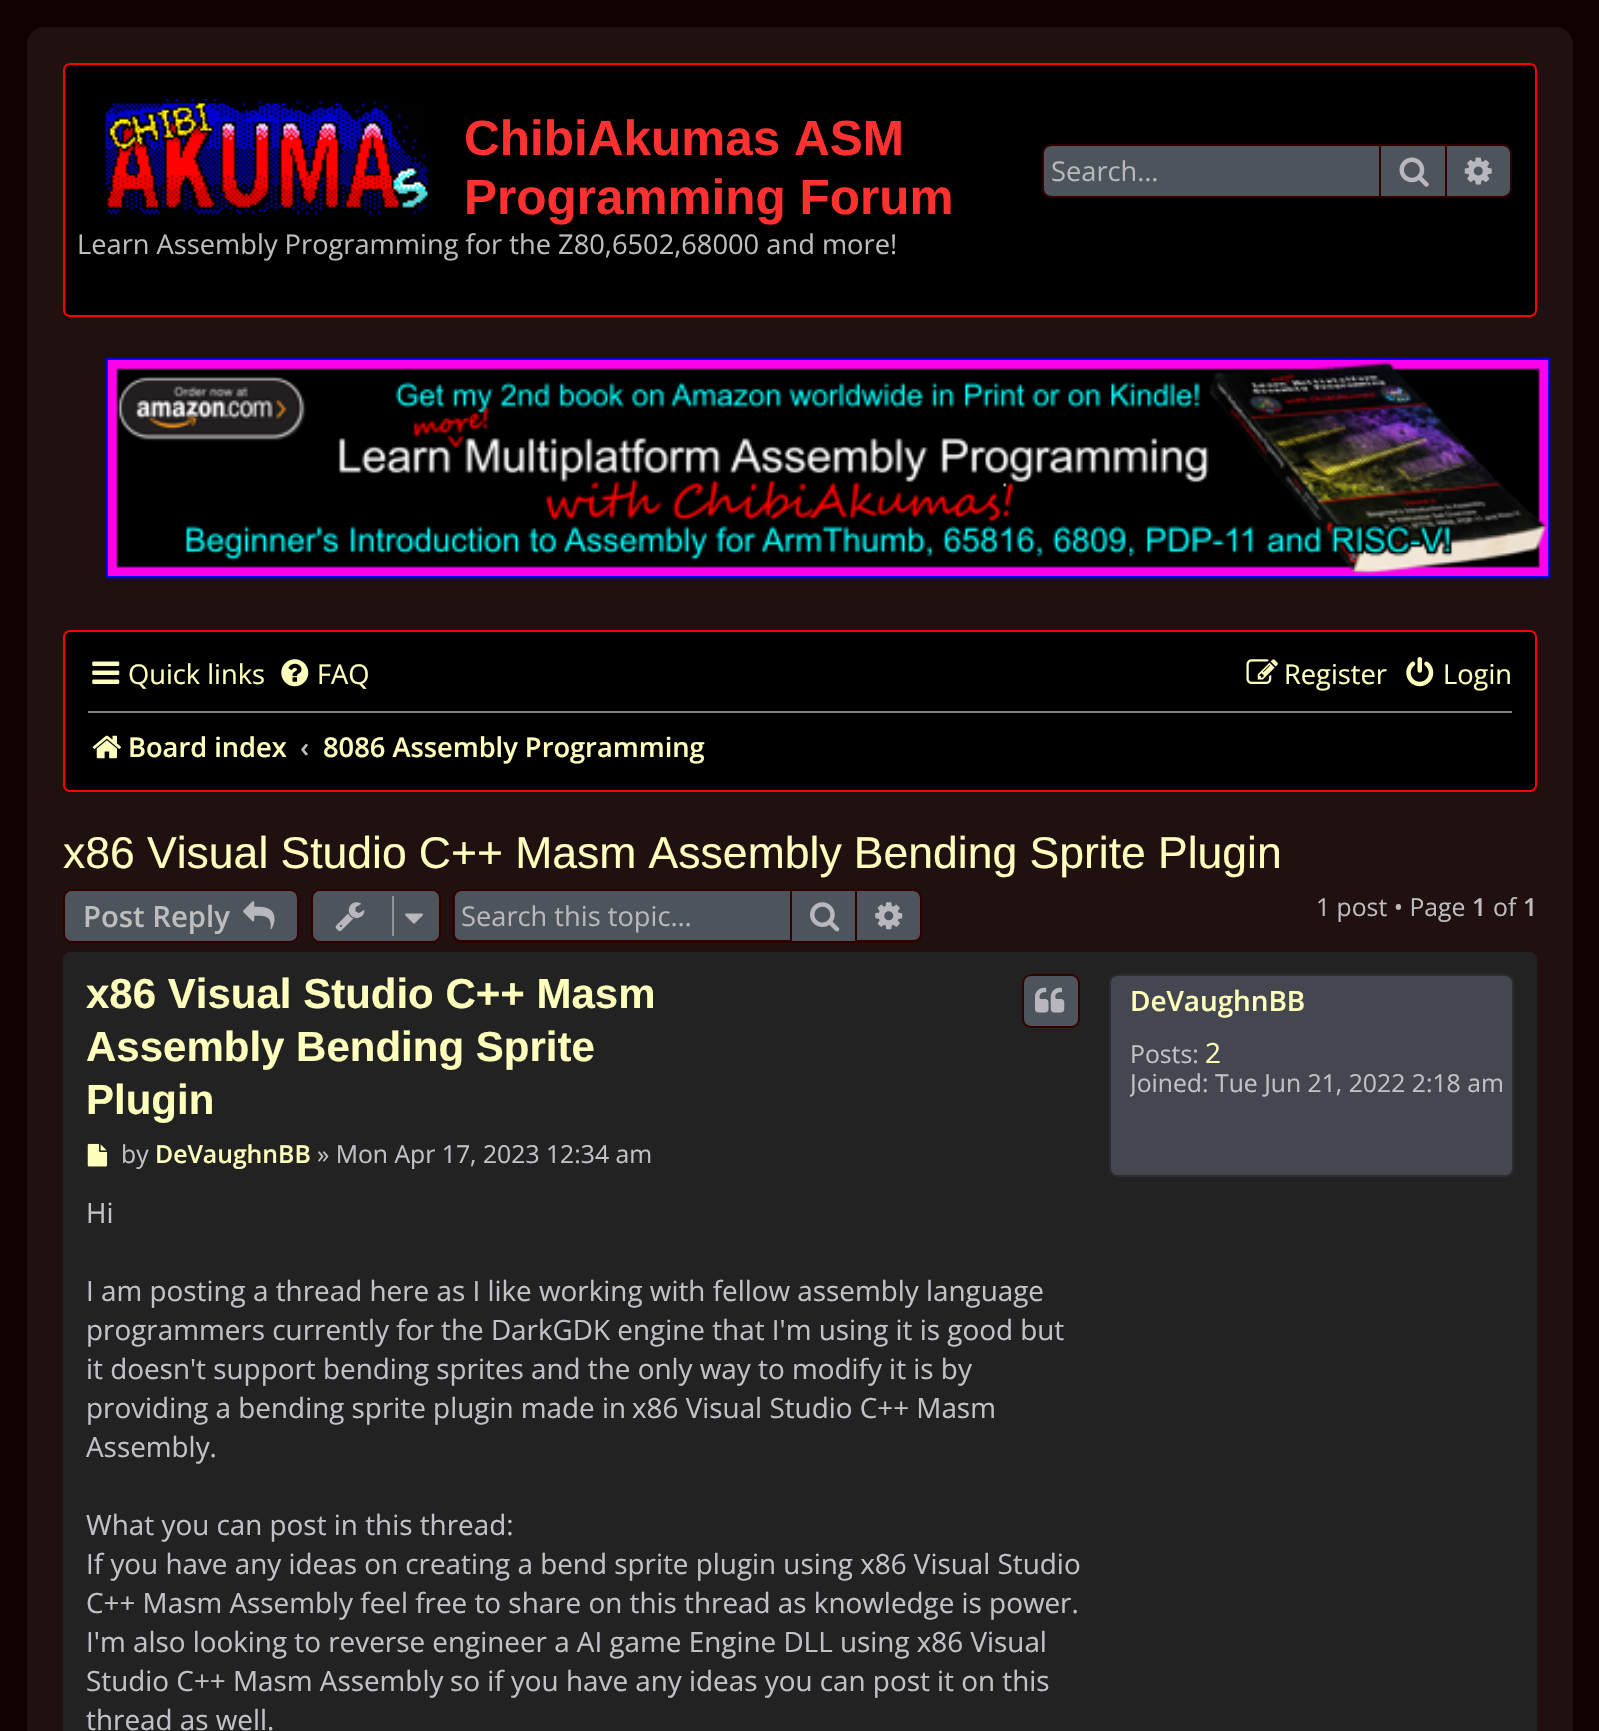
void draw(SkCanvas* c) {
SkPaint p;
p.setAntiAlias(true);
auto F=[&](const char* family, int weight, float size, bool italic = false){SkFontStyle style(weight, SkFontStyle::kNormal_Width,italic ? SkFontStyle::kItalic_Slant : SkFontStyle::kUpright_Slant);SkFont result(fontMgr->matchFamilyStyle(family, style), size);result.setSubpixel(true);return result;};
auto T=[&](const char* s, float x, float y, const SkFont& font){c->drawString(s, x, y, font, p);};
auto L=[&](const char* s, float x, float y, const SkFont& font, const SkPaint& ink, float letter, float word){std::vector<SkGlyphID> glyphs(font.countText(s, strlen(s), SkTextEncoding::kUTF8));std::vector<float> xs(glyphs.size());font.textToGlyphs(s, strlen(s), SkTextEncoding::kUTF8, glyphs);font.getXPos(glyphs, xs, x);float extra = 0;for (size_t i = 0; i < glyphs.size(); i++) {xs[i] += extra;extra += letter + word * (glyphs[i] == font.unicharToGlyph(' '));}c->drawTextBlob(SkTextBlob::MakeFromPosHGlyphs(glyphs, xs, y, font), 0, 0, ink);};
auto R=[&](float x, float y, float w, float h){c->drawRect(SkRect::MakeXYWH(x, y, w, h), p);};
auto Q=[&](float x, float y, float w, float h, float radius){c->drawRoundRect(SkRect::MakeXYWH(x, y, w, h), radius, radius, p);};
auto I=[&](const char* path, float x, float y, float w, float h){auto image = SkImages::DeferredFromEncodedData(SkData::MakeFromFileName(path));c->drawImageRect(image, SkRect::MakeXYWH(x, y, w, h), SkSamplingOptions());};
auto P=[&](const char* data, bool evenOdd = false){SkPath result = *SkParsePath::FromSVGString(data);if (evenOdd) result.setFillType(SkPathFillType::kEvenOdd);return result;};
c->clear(0xff100000);
p.setColor(0xff201010);
Q(27,27,1546,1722,18);
p.setColor(0xff000000);
c->drawRoundRect(SkRect::MakeXYWH(64,64,1472,252),6,6,p);
p.setStroke(true);
p.setStrokeWidth(2);
p.setColor(0xffff0000);
c->drawRoundRect(SkRect::MakeXYWH(64,64,1472,252),6,6,p);
I("1.png",105,99,324,116);
auto f1 = F("Liberation Sans",700,49.5);
p.setStroke(false);
p.setColor(0xffff3030);
T("ChibiAkumas ASM",464,155,f1);
T("Programming Forum",464,214,f1);
auto f2 = F("Open Sans",400,27.25);
p.setColor(0xffbdbdbd);
T("Learn Assembly Programming for the Z80,6502,68000 and more!",77,254,f2);
p.setColor(0xff4e545c);
c->drawPath(P("M1051 146h328v50h-328c-4 0-7-3-7-7v-36c0-4 3-7 7-7z"),p);
p.setColor(0xff300000);
c->drawPath(P("M1051 144h328v54h-328c-5 0-9-4-9-9v-36c0-5 4-9 9-9zm0 2h328v50h-328c-4 0-7-3-7-7v-36c0-4 3-7 7-7z",true),p);
p.setColor(0xffb7b7bd);
T("Search…",1051,181,f2);
p.setColor(0xff4e545c);
c->drawRect(SkRect::MakeXYWH(1380,145,66,52),p);
p.setStroke(true);
p.setColor(0xff300000);
c->drawRect(SkRect::MakeXYWH(1380,145,66,52),p);
I("2.png",1399,157,30,30);
p.setStroke(false);
p.setColor(0xff4e545c);
c->drawPath(P("M1447 146h56c4 0 7 3 7 7v36c0 4-3 7-7 7h-56z"),p);
p.setColor(0xff300000);
c->drawPath(P("M1447 144h56c5 0 9 4 9 9v36c0 5-4 9-9 9h-56zm0 2h56c4 0 7 3 7 7v36c0 4-3 7-7 7h-56z",true),p);
I("3.png",1464,157,28,28);
I("4.png",105,357,1446,222);
p.setColor(0xff000000);
c->drawRoundRect(SkRect::MakeXYWH(64,631,1472,160),6,6,p);
p.setStroke(true);
p.setColor(0xffff0000);
c->drawRoundRect(SkRect::MakeXYWH(64,631,1472,160),6,6,p);
I("5.png",92,661,28,23);
p.setStroke(false);
p.setColor(0xffffffbd);
T("Quick links",128,684,f2);
I("6.png",281,659,28,28);
T("FAQ",317,684,f2);
I("7.png",1246,659,32,25);
T("Register",1284,684,f2);
I("8.png",1406,657,28,30);
T("Login",1443,684,f2);
p.setColor(0xff808084);
R(88,711,1424,2);
I("9.png",92,735,29,24);
auto f3 = F("Open Sans",600,27.25);
p.setColor(0xffffffbd);
T("Board index",128,757,f3);
p.setColor(0xffbdbdbd);
T("‹",300,757,f3);
p.setColor(0xffffffbd);
T("8086 Assembly Programming",323,757,f3);
auto f4 = F("Liberation Sans",400,44.55);
L("x86 Visual Studio C++ Masm Assembly Bending Sprite Plugin",63,868,f4,p,0,-.25);
p.setColor(0xff4e545c);
c->drawRoundRect(SkRect::MakeXYWH(64,890,234,52),8,8,p);
p.setStroke(true);
p.setColor(0xff300000);
c->drawRoundRect(SkRect::MakeXYWH(64,890,234,52),8,8,p);
auto f5 = F("Open Sans",600,29.25);
p.setStroke(false);
p.setColor(0xffbdbdbd);
T("Post Reply",83,927,f5);
I("10.png",243,901,32,29);
p.setColor(0xff4e545c);
c->drawRoundRect(SkRect::MakeXYWH(312,890,128,52),8,8,p);
p.setStroke(true);
p.setColor(0xff300000);
c->drawRoundRect(SkRect::MakeXYWH(312,890,128,52),8,8,p);
I("11.png",335,902,30,30);
p.setStroke(false);
p.setColor(0xff93959d);
R(392,896,2,40);
I("12.png",405,913,18,11);
p.setColor(0xff4e545c);
c->drawPath(P("M462 891h328v50h-328c-4 0-7-3-7-7v-36c0-4 3-7 7-7z"),p);
p.setColor(0xff300000);
c->drawPath(P("M461 889h329v54h-329c-5 0-9-4-9-9v-36c0-5 4-9 9-9zm0 2h329v49h-329c-3 0-7-3-7-6v-36c0-4 4-7 7-7z",true),p);
p.setColor(0xffb7b7bd);
T("Search this topic…",461,926,f2);
p.setColor(0xff4e545c);
c->drawRect(SkRect::MakeXYWH(791,890,65,52),p);
p.setStroke(true);
p.setColor(0xff300000);
c->drawRect(SkRect::MakeXYWH(791,890,65,52),p);
I("13.png",810,902,30,30);
p.setStroke(false);
p.setColor(0xff4e545c);
c->drawPath(P("M857 891h56c4 0 7 3 7 7v36c0 4-3 7-7 7h-56z"),p);
p.setColor(0xff300000);
c->drawPath(P("M857 889h57c4 0 8 4 8 9v36c0 5-4 9-8 9h-57zm0 2h57c3 0 6 3 6 7v36c0 3-3 6-6 6h-57z",true),p);
I("14.png",875,902,28,28);
auto f6 = F("Open Sans",400,24.75);
p.setColor(0xffbdbdbd);
T("1 post • Page",1316,916,f6);
auto f7 = F("Open Sans",600,24.75);
T("1",1472,916,f7);
T("of",1493,916,f6);
T("1",1523,916,f7);
p.setColor(0xff222222);
Q(63,952,1474,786,7);
auto f8 = F("Liberation Sans",700,42);
p.setColor(0xffffffbd);
T("x86 Visual Studio C++ Masm",86,1008,f8);
T("Assembly Bending Sprite",86,1061,f8);
T("Plugin",86,1114,f8);
p.setColor(0xff4e545c);
c->drawRoundRect(SkRect::MakeXYWH(1023,975,56,52),8,8,p);
p.setStroke(true);
p.setColor(0xff300000);
c->drawRoundRect(SkRect::MakeXYWH(1023,975,56,52),8,8,p);
I("15.png",1035,987,30,26);
I("16.png",87,1143,21,24);
p.setStroke(false);
p.setColor(0xffc1c1c7);
T("by",121,1163,f6);
p.setColor(0xffffffbd);
T("DeVaughnBB",155,1163,f7);
p.setColor(0xffc1c1c7);
T("» Mon Apr 17, 2023 12:34 am",317,1163,f6);
auto f9 = F("Open Sans",400,27.85);
T("Hi",86,1223,f9);
T("I am posting a thread here as I like working with fellow assembly language",86,1301,f9);
T("programmers currently for the DarkGDK engine that I'm using it is good but",86,1340,f9);
T("it doesn't support bending sprites and the only way to modify it is by",86,1379,f9);
T("providing a bending sprite plugin made in",86,1418,f9);
T("x86 Visual Studio C++ Masm",632,1418,f9);
T("Assembly.",86,1457,f9);
T("What you can post in this thread:",86,1535,f9);
T("If you have any ideas on creating a bend sprite plugin using x86 Visual Studio",86,1574,f9);
T("C++ Masm Assembly feel free to share on this thread as knowledge is power.",86,1613,f9);
T("I'm also looking to reverse engineer a AI game Engine DLL using x86 Visual",86,1652,f9);
T("Studio C++ Masm Assembly",86,1691,f9);
T("so if you have any ideas you can post it on this",450,1691,f9);
T("thread as well.",86,1730,f9);
p.setColor(0xff44474f);
c->drawRoundRect(SkRect::MakeXYWH(1110,975,403,201),8,8,p);
p.setStroke(true);
p.setColor(0xff2b2d30);
c->drawRoundRect(SkRect::MakeXYWH(1110,975,403,201),8,8,p);
auto f10 = F("Open Sans",600,27.85);
p.setStroke(false);
p.setColor(0xffffffbd);
T("DeVaughnBB",1130,1011,f10);
p.setColor(0xffc1c1c7);
T("Posts:",1130,1063,f6);
p.setColor(0xffffffbd);
T("2",1205,1063,f9);
c->save();
c->clipRect(SkRect::MakeXYWH(1130,1069,382,29));
p.setColor(0xffc1c1c7);
T("Joined:",1130,1092,f6);
c->restore();
T("Tue Jun 21, 2022 2:18 am",1215,1092,f6);
}
